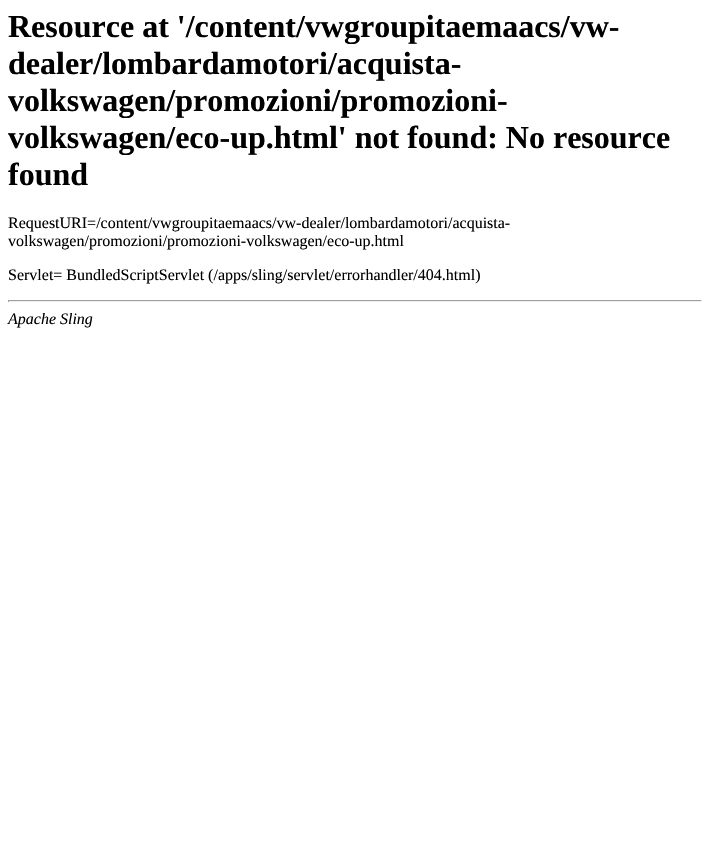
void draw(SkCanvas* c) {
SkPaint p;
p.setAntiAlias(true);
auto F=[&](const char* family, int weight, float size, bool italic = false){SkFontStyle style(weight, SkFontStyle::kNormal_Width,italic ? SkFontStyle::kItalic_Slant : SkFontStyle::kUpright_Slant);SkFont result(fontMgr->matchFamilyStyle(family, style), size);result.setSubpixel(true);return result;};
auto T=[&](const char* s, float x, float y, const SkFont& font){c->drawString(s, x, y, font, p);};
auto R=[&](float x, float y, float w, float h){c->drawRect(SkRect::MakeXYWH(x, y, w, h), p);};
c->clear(0xffffffff);
auto f1 = F("Liberation Serif",700,32);
p.setColor(0xff000000);
T("Resource at '/content/vwgroupitaemaacs/vw-",8,37,f1);
T("dealer/lombardamotori/acquista-",8,74,f1);
T("volkswagen/promozioni/promozioni-",8,111,f1);
T("volkswagen/eco-up.html' not found: No resource",8,148,f1);
T("found",8,185,f1);
auto f2 = F("Liberation Serif",400,16);
T("RequestURI=/content/vwgroupitaemaacs/vw-dealer/lombardamotori/acquista-",8,228,f2);
T("volkswagen/promozioni/promozioni-volkswagen/eco-up.html",8,246,f2);
T("Servlet= BundledScriptServlet (/apps/sling/servlet/errorhandler/404.html)",8,280,f2);
p.setColor(0xff9f9f9f);
R(8,300,694,1);
p.setColor(0xffeeeeee);
R(701,300,1,2);
R(8,301,694,1);
p.setColor(0xff9f9f9f);
R(8,300,1,2);
auto f3 = F("Liberation Serif",400,16,true);
p.setColor(0xff000000);
T("Apache Sling",8,324,f3);
}
